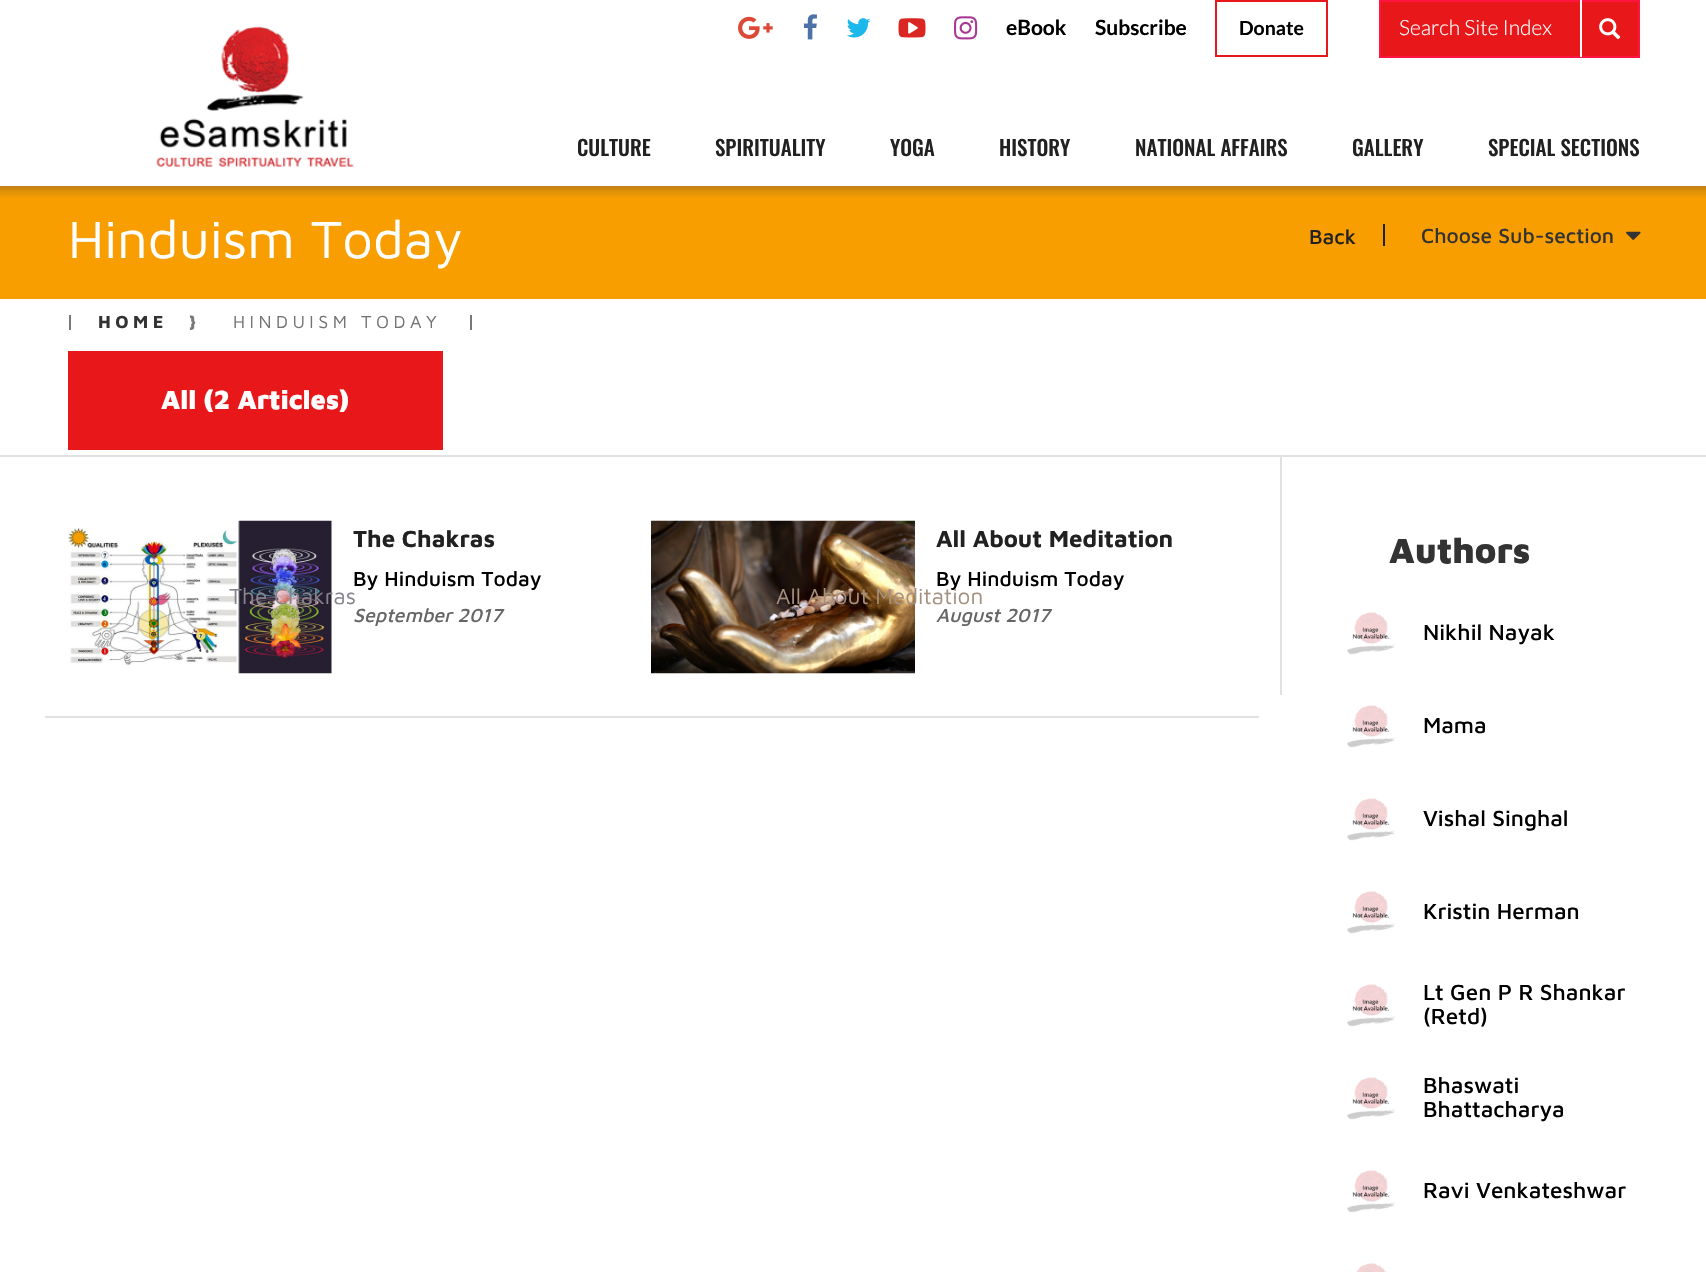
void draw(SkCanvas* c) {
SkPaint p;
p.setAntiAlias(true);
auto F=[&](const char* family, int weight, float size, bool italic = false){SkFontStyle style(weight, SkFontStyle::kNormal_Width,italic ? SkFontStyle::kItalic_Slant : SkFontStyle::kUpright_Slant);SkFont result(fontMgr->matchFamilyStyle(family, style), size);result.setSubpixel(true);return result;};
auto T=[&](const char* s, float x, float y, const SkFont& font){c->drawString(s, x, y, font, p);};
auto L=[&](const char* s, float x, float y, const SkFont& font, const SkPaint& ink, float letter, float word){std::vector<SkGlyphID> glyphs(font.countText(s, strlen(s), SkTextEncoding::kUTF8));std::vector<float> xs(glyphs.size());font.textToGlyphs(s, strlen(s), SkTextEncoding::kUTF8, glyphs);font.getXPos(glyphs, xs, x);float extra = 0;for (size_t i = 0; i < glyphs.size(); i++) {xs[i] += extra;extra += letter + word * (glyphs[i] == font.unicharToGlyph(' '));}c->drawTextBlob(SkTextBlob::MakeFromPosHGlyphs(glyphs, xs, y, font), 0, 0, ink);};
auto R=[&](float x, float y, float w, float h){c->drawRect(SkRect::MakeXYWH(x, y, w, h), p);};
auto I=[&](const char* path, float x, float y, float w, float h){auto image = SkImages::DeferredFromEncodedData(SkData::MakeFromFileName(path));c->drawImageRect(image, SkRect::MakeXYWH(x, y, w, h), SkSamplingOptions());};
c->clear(0xffffffff);
I("1.png",156,26,198,141);
I("2.png",738,16,35,23);
I("3.png",803,14,14,26);
I("4.png",846,18,25,20);
I("5.png",898,18,28,20);
I("6.png",954,16,24,24);
auto f1 = F("Lato",700,21);
p.setColor(0xff000000);
T("eBook",1006,35,f1);
T("Subscribe",1095,35,f1);
p.setStroke(true);
p.setStrokeWidth(2);
p.setColor(0xffe7171a);
c->drawRect(SkRect::MakeXYWH(1216,1,111,55),p);
auto f2 = F("Lato",700,19.5);
p.setStroke(false);
p.setColor(0xff000000);
T("Donate",1239,35,f2);
p.setColor(0xffe7171a);
R(1381,2,199,54);
p.setColor(0xffff143f);
R(1379,0,261,2);
R(1379,56,202,2);
R(1379,0,2,57);
auto f3 = F("Lato",300,21);
p.setColor(0xffffffff);
T("Search Site Index",1399,35,f3);
p.setColor(0xffe7171a);
R(1582,2,56,54);
p.setColor(0xffff143f);
R(1638,0,2,57);
R(1580,56,60,2);
p.setColor(0xffffffff);
R(1580,0,2,57);
I("7.png",1599,18,22,22);
auto f4 = F("Oswald",500,21);
p.setColor(0xff212121);
T("CULTURE",577,156,f4);
T("SPIRITUALITY",715,156,f4);
T("YOGA",890,156,f4);
T("HISTORY",999,156,f4);
T("NATIONAL AFFAIRS",1135,156,f4);
T("GALLERY",1352,156,f4);
T("SPECIAL SECTIONS",1488,156,f4);
p.setColor(0xfff89e00);
R(0,186,1706,113);
I("8.png",0,186,1706,12);
auto f5 = F("Maven Pro",400,54);
p.setColor(0xffffffff);
T("Hinduism Today",68,258,f5);
auto f6 = F("Maven Pro",500,21);
p.setColor(0xff212121);
T("Back",1309,244,f6);
R(1383,224,2,22);
p.setColor(0xff333333);
T("Choose Sub-section",1421,243,f6);
I("9.png",1626,231,15,9);
p.setColor(0xff787878);
R(69,315,2,15);
auto f7 = F("Maven Pro",700,18);
p.setColor(0xff333333);
L("HOME",98,328,f7,p,4.5,0);
p.setColor(0xff787878);
L("}",189,328,f7,p,4.5,0);
auto f8 = F("Maven Pro",400,18);
p.setColor(0xff727272);
L("HINDUISM TODAY",233,328,f8,p,4.5,0);
p.setColor(0xff787878);
R(470,315,2,15);
p.setColor(0xffe1e1e1);
R(0,455,1706,2);
p.setColor(0xffe7171a);
R(68,351,375,99);
auto f9 = F("Maven Pro",900,27);
p.setColor(0xffffffff);
T("All (2 Articles)",161,409,f9);
p.setColor(0xffe1e1e1);
R(45,716,1214,2);
I("10.png",68,520,264,154);
auto f10 = F("Maven Pro",700,24);
p.setColor(0xff212121);
T("The Chakras",353,547,f10);
p.setColor(0xff000000);
T("By Hinduism Today",353,586,f6);
auto f11 = F("Maven Pro",500,19.5,true);
p.setColor(0xff666666);
T("September 2017",353,622,f11);
auto f12 = F("Maven Pro",400,22.5);
p.setColor(0xff87848d);
T("The Chakras",229,604,f12);
I("11.png",651,520,264,154);
p.setColor(0xff212121);
T("All About Meditation",936,547,f10);
p.setColor(0xff000000);
T("By Hinduism Today",936,586,f6);
p.setColor(0xff666666);
T("August 2017",936,622,f11);
p.setColor(0xffa4907e);
T("All About Meditation",776,604,f12);
p.setColor(0xffe1e1e1);
R(1280,456,2,239);
auto f13 = F("Maven Pro",900,36);
p.setColor(0xff333333);
T("Authors",1389,563,f13);
I("12.png",1347,612,48,43);
auto f14 = F("Maven Pro",500,22.5);
p.setColor(0xff000000);
T("Nikhil Nayak",1423,640,f14);
I("12.png",1347,705,48,43);
T("Mama",1423,733,f14);
I("12.png",1347,798,48,43);
T("Vishal Singhal",1423,826,f14);
I("12.png",1347,891,48,43);
T("Kristin Herman",1423,919,f14);
I("12.png",1347,984,48,43);
T("Lt Gen P R Shankar",1423,1000,f14);
T("(Retd)",1423,1024,f14);
I("12.png",1347,1077,48,43);
T("Bhaswati",1423,1093,f14);
T("Bhattacharya",1423,1117,f14);
I("12.png",1347,1170,48,43);
T("Ravi Venkateshwar",1423,1198,f14);
I("13.png",1356,1263,30,9);
}
